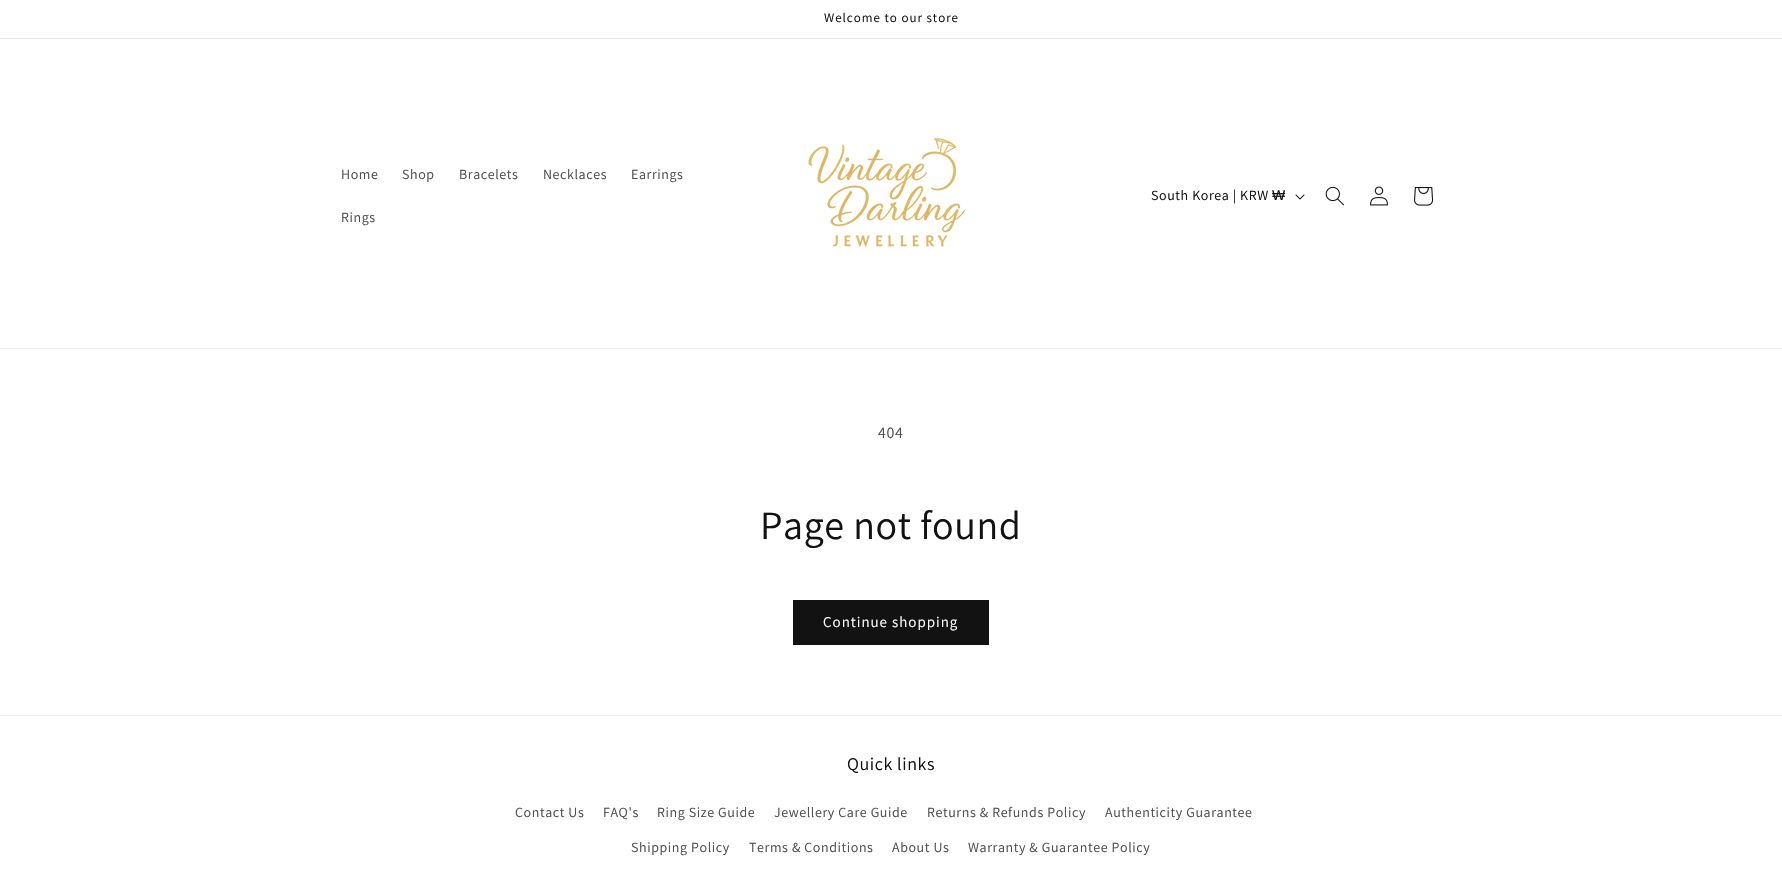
void draw(SkCanvas* c) {
SkPaint p;
p.setAntiAlias(true);
auto F=[&](const char* family, int weight, float size, bool italic = false){SkFontStyle style(weight, SkFontStyle::kNormal_Width,italic ? SkFontStyle::kItalic_Slant : SkFontStyle::kUpright_Slant);SkFont result(fontMgr->matchFamilyStyle(family, style), size);result.setSubpixel(true);return result;};
auto L=[&](const char* s, float x, float y, const SkFont& font, const SkPaint& ink, float letter, float word){std::vector<SkGlyphID> glyphs(font.countText(s, strlen(s), SkTextEncoding::kUTF8));std::vector<float> xs(glyphs.size());font.textToGlyphs(s, strlen(s), SkTextEncoding::kUTF8, glyphs);font.getXPos(glyphs, xs, x);float extra = 0;for (size_t i = 0; i < glyphs.size(); i++) {xs[i] += extra;extra += letter + word * (glyphs[i] == font.unicharToGlyph(' '));}c->drawTextBlob(SkTextBlob::MakeFromPosHGlyphs(glyphs, xs, y, font), 0, 0, ink);};
auto R=[&](float x, float y, float w, float h){c->drawRect(SkRect::MakeXYWH(x, y, w, h), p);};
auto I=[&](const char* path, float x, float y, float w, float h){auto image = SkImages::DeferredFromEncodedData(SkData::MakeFromFileName(path));c->drawImageRect(image, SkRect::MakeXYWH(x, y, w, h), SkSamplingOptions());};
c->clear(0xffffffff);
p.setColor(0xffececec);
R(0,38,1782,1);
auto f1 = F("Assistant",400,13);
p.setColor(0xff121212);
L("Welcome to our store",824,22,f1,p,1,0);
p.setColor(0xffececec);
R(0,348,1782,1);
auto f2 = F("Assistant",400,14);
p.setColor(0xff4d4d4d);
L("Home",341,179,f2,p,.6,0);
L("Shop",402,179,f2,p,.6,0);
L("Bracelets",459,179,f2,p,.6,0);
L("Necklaces",543,179,f2,p,.6,0);
L("Earrings",631,179,f2,p,.6,0);
L("Rings",341,222,f2,p,.6,0);
I("1.png",808,137,158,110);
p.setColor(0xff121212);
L("South Korea | KRW",1151,200,f2,p,.6,0);
auto f3 = F("Liberation Sans",400,14);
L("₩",1272,200,f3,p,.6,0);
I("2.png",1295,194,10,6);
I("3.png",1325,186,19,20);
I("4.png",1370,186,18,20);
I("5.png",1414,187,20,19);
auto f4 = F("Assistant",400,16);
p.setColor(0xff4d4d4d);
L("404",878,438,f4,p,.6,0);
auto f5 = F("Assistant",400,40);
p.setColor(0xff121212);
L("Page not found",760,539,f5,p,.6,0);
R(793,600,196,45);
auto f6 = F("Assistant",400,15);
p.setColor(0xffffffff);
L("Continue shopping",823,627,f6,p,1,0);
p.setColor(0xffececec);
R(0,715,1782,1);
auto f7 = F("Assistant",400,18);
p.setColor(0xff121212);
L("Quick links",847,770,f7,p,.6,0);
p.setColor(0xff4d4d4d);
L("Contact Us",515,817,f2,p,.6,0);
L("FAQ's",603,817,f2,p,.6,0);
L("Ring Size Guide",657,817,f2,p,.6,0);
L("Jewellery Care Guide",774,817,f2,p,.6,0);
L("Returns & Refunds Policy",927,817,f2,p,.6,0);
L("Authenticity Guarantee",1105,817,f2,p,.6,0);
L("Shipping Policy",631,852,f2,p,.6,0);
L("Terms & Conditions",749,852,f2,p,.6,0);
L("About Us",892,852,f2,p,.6,0);
L("Warranty & Guarantee Policy",968,852,f2,p,.6,0);
}
